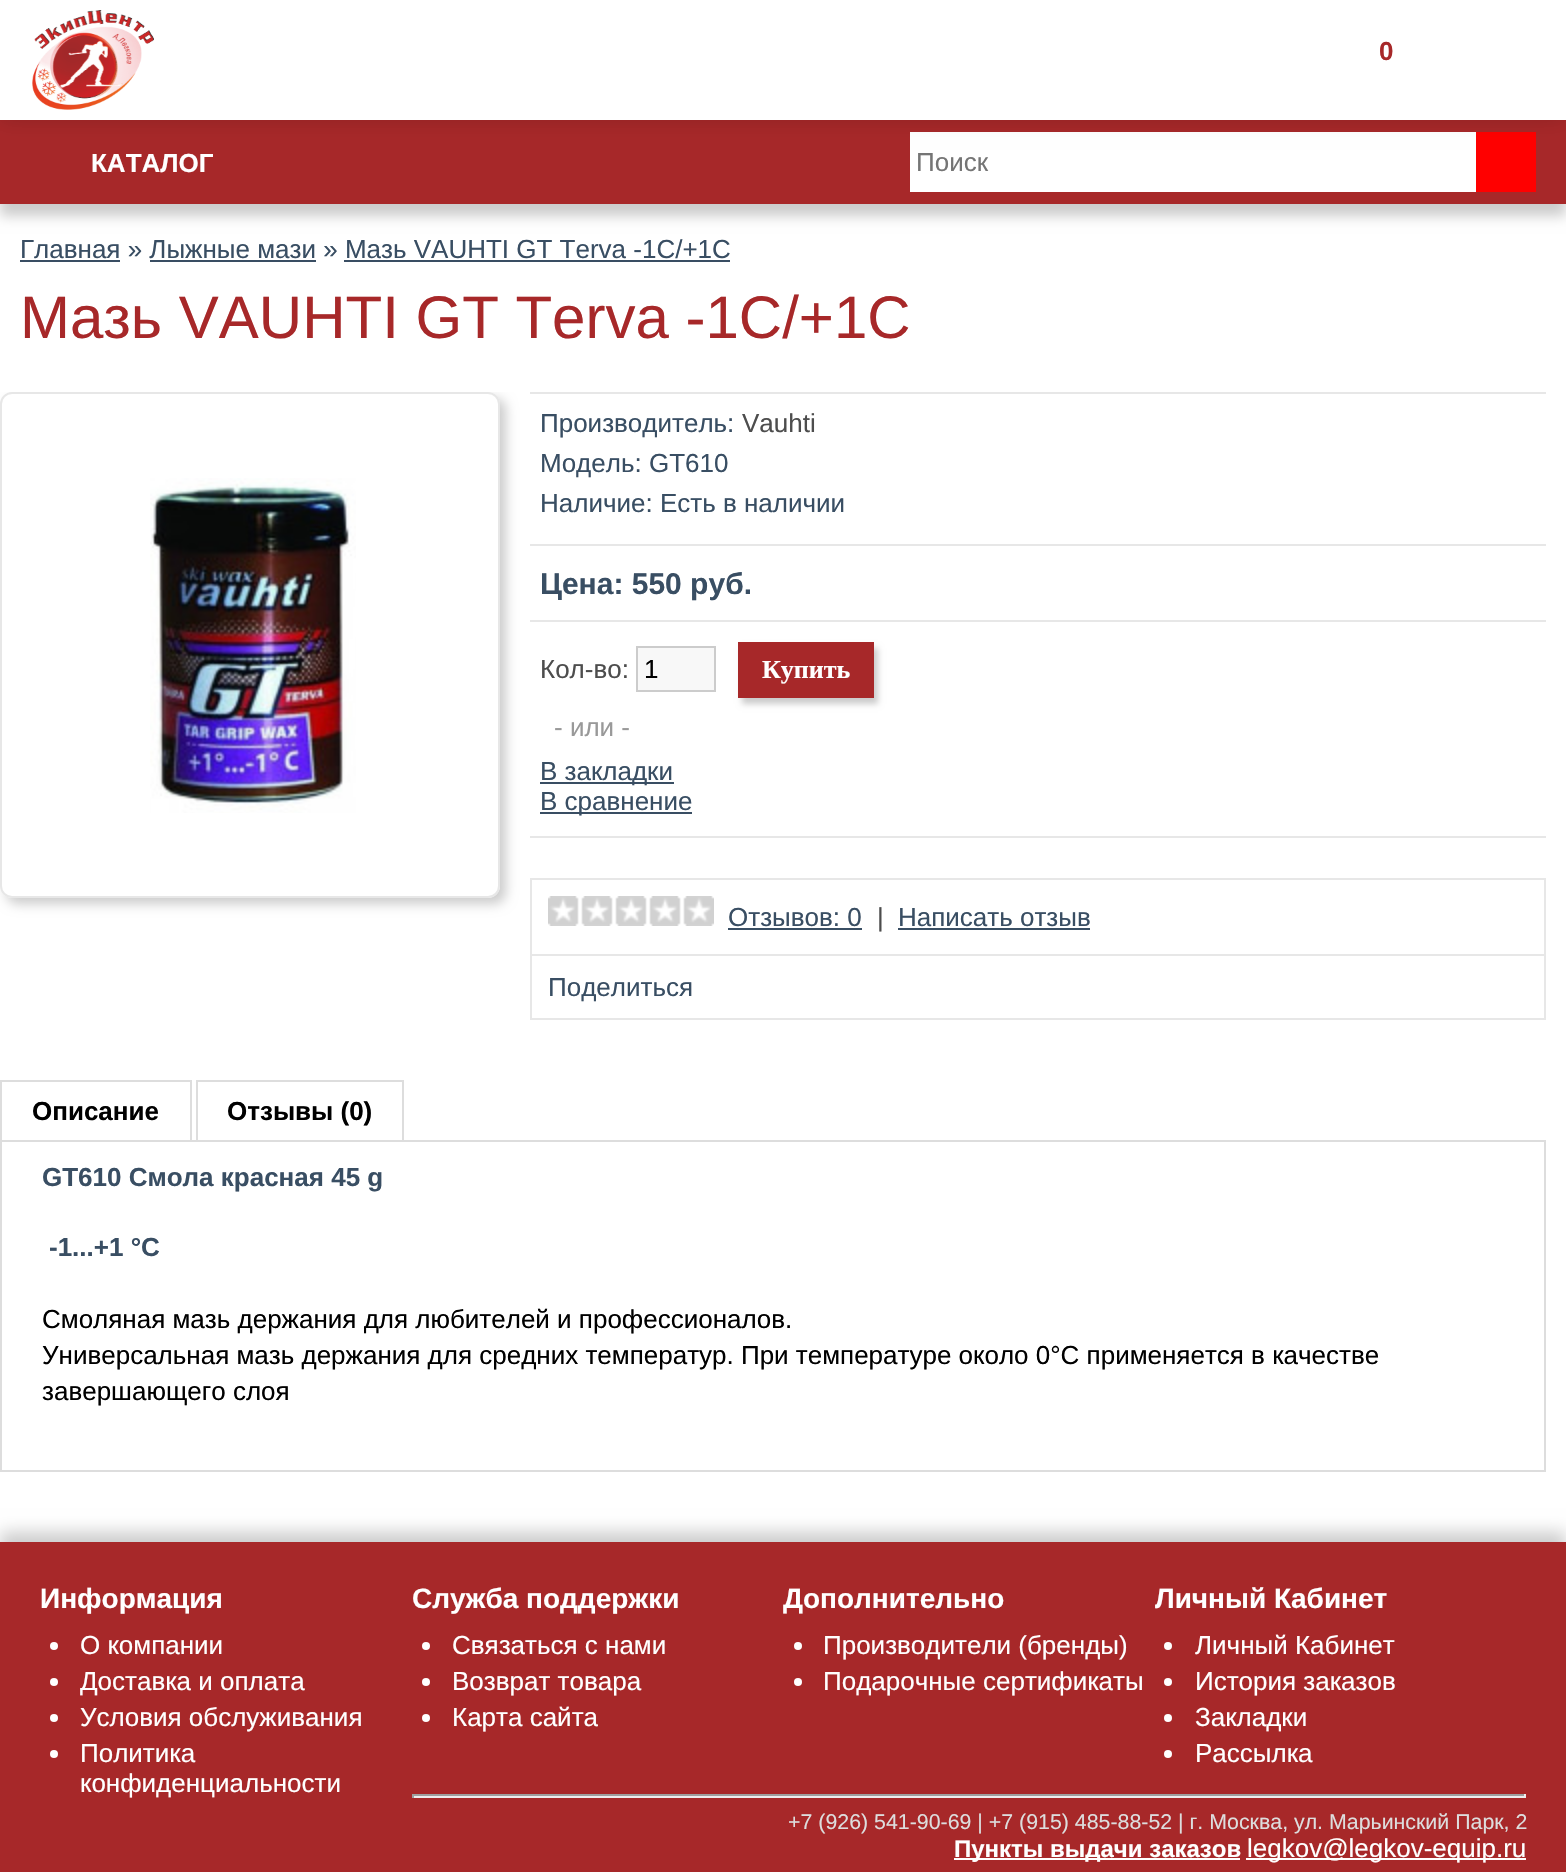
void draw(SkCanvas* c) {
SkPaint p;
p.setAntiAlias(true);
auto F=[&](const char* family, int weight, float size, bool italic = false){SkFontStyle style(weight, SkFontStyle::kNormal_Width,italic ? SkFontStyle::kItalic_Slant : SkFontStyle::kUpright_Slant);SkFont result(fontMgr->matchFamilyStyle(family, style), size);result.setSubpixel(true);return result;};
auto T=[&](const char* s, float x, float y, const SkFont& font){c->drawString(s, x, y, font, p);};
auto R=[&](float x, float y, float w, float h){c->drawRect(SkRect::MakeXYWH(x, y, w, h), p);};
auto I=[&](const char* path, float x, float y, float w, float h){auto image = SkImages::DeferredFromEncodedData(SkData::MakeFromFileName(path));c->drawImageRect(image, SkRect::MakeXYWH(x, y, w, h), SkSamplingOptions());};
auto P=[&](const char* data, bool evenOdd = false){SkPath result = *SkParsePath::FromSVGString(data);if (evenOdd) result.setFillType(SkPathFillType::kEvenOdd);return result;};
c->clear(0xffffffff);
p.setColor(0xffcccccc);
p.setMaskFilter(SkMaskFilter::MakeBlur(kNormal_SkBlurStyle, 6));
c->drawRect(SkRect::MakeXYWH(0,132,1566,84),p);
p.setMaskFilter(nullptr);
p.setColor(0xffa72829);
R(0,120,1566,84);
p.setColor(0xffffffff);
R(910,132,566,60);
p.setColor(0xffff0000);
R(1476,132,60,60);
p.setColor(0x26000000);
p.setMaskFilter(SkMaskFilter::MakeBlur(kNormal_SkBlurStyle, 10));
c->drawRect(SkRect::MakeXYWH(0,0,1566,120),p);
p.setMaskFilter(nullptr);
p.setColor(0xffffffff);
R(0,0,1566,120);
I("1.png",32,10,122,100);
auto f1 = F("Liberation Sans",700,26);
p.setColor(0xffa72829);
T("0",1379,60,f1);
p.setColor(0xffffffff);
T("КАТАЛОГ",91,172,f1);
auto f2 = F("Liberation Sans",400,26);
p.setColor(0xff757575);
T("Поиск",916,171,f2);
p.setColor(0xff394e63);
T("Главная » Лыжные мази » Мазь VAUHTI GT Terva -1C/+1C",20,258,f2);
R(20,260,100,2);
R(150,260,166,2);
R(344,260,386,2);
auto f3 = F("Liberation Sans",400,60);
p.setColor(0xffa72829);
T("Мазь VAUHTI GT Terva -1C/+1C",20,338,f3);
c->save();
c->clipRect(SkRect::MakeXYWH(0,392,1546,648));
c->clipPath(P("M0 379h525v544h-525zm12 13h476c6.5 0 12 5.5 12 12v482c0 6.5-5.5 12-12 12h-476c-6.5 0-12-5.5-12-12v-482c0-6.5 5.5-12 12-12z",true),true);
p.setColor(0xffcccccc);
p.setMaskFilter(SkMaskFilter::MakeBlur(kNormal_SkBlurStyle, 6));
c->drawRoundRect(SkRect::MakeXYWH(6,398,500,506),12,12,p);
p.setMaskFilter(nullptr);
c->restore();
p.setStroke(true);
p.setStrokeWidth(2);
p.setColor(0xffe7e7e7);
c->drawRoundRect(SkRect::MakeXYWH(1,393,498,504),11,11,p);
I("2.png",150,478,206,335);
p.setStroke(false);
R(530,392,1016,2);
R(530,544,1016,2);
p.setColor(0xff394e63);
T("Производитель:",540,432,f2);
p.setColor(0xff4d4d4d);
T("Vauhti",742,432,f2);
p.setColor(0xff394e63);
T("Модель: GT610",540,472,f2);
T("Наличие: Есть в наличии",540,512,f2);
p.setColor(0xffe7e7e7);
R(530,620,1016,2);
auto f4 = F("Liberation Sans",700,30);
p.setColor(0xff394e63);
T("Цена: 550 руб.",540,594,f4);
p.setColor(0xffe7e7e7);
R(530,836,1016,2);
p.setColor(0xff4d4d4d);
T("Кол-во:",540,678,f2);
p.setColor(0xfff8f8f8);
c->drawRect(SkRect::MakeXYWH(637,647,78,44),p);
p.setStroke(true);
p.setColor(0xffcccccc);
c->drawRect(SkRect::MakeXYWH(637,647,78,44),p);
p.setStroke(false);
p.setColor(0xff000000);
T("1",644,678,f2);
p.setColor(0xffcccccc);
p.setMaskFilter(SkMaskFilter::MakeBlur(kNormal_SkBlurStyle, 3));
c->drawRect(SkRect::MakeXYWH(742,648,136,56),p);
p.setMaskFilter(nullptr);
p.setColor(0xffa72829);
R(738,642,136,56);
auto f5 = F("Liberation Serif",700,26);
p.setColor(0xffffffff);
T("Купить",762,678,f5);
p.setColor(0xff999999);
T("- или -",554,736,f2);
p.setColor(0xff394e63);
R(540,782,134,2);
T("В закладки",540,780,f2);
R(540,812,152,2);
T("В сравнение",540,810,f2);
p.setColor(0xffe7e7e7);
R(530,878,1016,2);
R(1544,878,2,142);
R(530,878,2,142);
R(532,954,1012,2);
I("3.png",548,896,166,30);
p.setColor(0xff394e63);
T("Отзывов: 0",728,926,f2);
R(728,928,134,2);
p.setColor(0xff4d4d4d);
T("|",877,926,f2);
p.setColor(0xff394e63);
T("Написать отзыв",898,926,f2);
R(898,928,192,2);
p.setColor(0xffe7e7e7);
R(532,1018,1012,2);
p.setColor(0xff394e63);
T("Поделиться",548,996,f2);
p.setColor(0xffdddddd);
R(0,1140,1546,2);
R(0,1080,192,2);
R(190,1080,2,62);
R(0,1080,2,62);
p.setColor(0xff000000);
T("Описание",32,1120,f1);
p.setColor(0xffdddddd);
R(196,1080,208,2);
R(402,1080,2,60);
R(196,1080,2,60);
p.setColor(0xff000000);
T("Отзывы (0)",227,1120,f1);
p.setColor(0xffdddddd);
R(1544,1142,2,330);
R(0,1470,1546,2);
R(0,1142,2,330);
p.setColor(0xff394e63);
T("GT610 Смола красная 45 g",42,1186,f1);
T("-1...+1 °C",49,1256,f1);
p.setColor(0xff000000);
T("Смоляная мазь держания для любителей и профессионалов.",42,1328,f2);
T("Универсальная мазь держания для средних температур. При температуре около 0°С применяется в качестве",42,1364,f2);
T("завершающего слоя",42,1400,f2);
p.setColor(0xffcccccc);
p.setMaskFilter(SkMaskFilter::MakeBlur(kNormal_SkBlurStyle, 8));
c->drawRect(SkRect::MakeXYWH(0,1532,1566,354),p);
p.setMaskFilter(nullptr);
p.setColor(0xffa72829);
R(0,1542,1566,330);
auto f6 = F("Liberation Sans",700,28);
p.setColor(0xffffffff);
T("Информация",40,1608,f6);
c->drawCircle(54,1646,4,p);
T("О компании",80,1654,f2);
c->drawCircle(54,1682,4,p);
T("Доставка и оплата",80,1690,f2);
c->drawCircle(54,1718,4,p);
T("Условия обслуживания",80,1726,f2);
c->drawCircle(54,1754,4,p);
T("Политика",80,1762,f2);
T("конфиденциальности",80,1792,f2);
T("Служба поддержки",412,1608,f6);
c->drawCircle(426,1646,4,p);
T("Связаться с нами",452,1654,f2);
c->drawCircle(426,1682,4,p);
T("Возврат товара",452,1690,f2);
c->drawCircle(426,1718,4,p);
T("Карта сайта",452,1726,f2);
T("Дополнительно",783,1608,f6);
c->drawCircle(798,1646,4,p);
T("Производители (бренды)",823,1654,f2);
c->drawCircle(798,1682,4,p);
T("Подарочные сертификаты",823,1690,f2);
T("Личный Кабинет",1155,1608,f6);
c->drawCircle(1168,1646,4,p);
T("Личный Кабинет",1195,1654,f2);
c->drawCircle(1168,1682,4,p);
T("История заказов",1195,1690,f2);
c->drawCircle(1168,1718,4,p);
T("Закладки",1195,1726,f2);
c->drawCircle(1168,1754,4,p);
T("Рассылка",1195,1762,f2);
p.setColor(0xff9f9f9f);
R(412,1794,1114,2);
p.setColor(0xffeeeeee);
R(1524,1794,2,4);
R(412,1796,1114,2);
p.setColor(0xff9f9f9f);
R(412,1794,2,4);
auto f7 = F("Liberation Sans",400,21.35);
p.setColor(0xffdddddd);
T("+7 (926) 541-90-69 | +7 (915) 485-88-52 | г. Москва, ул. Марьинский Парк, 2",788,1829,f7);
p.setColor(0xffffffff);
R(954,1858,286,2);
auto f8 = F("Liberation Sans",700,24);
T("Пункты выдачи заказов",954,1857,f8);
R(1246,1858,280,2);
T("legkov@legkov-equip.ru",1247,1857,f2);
}
